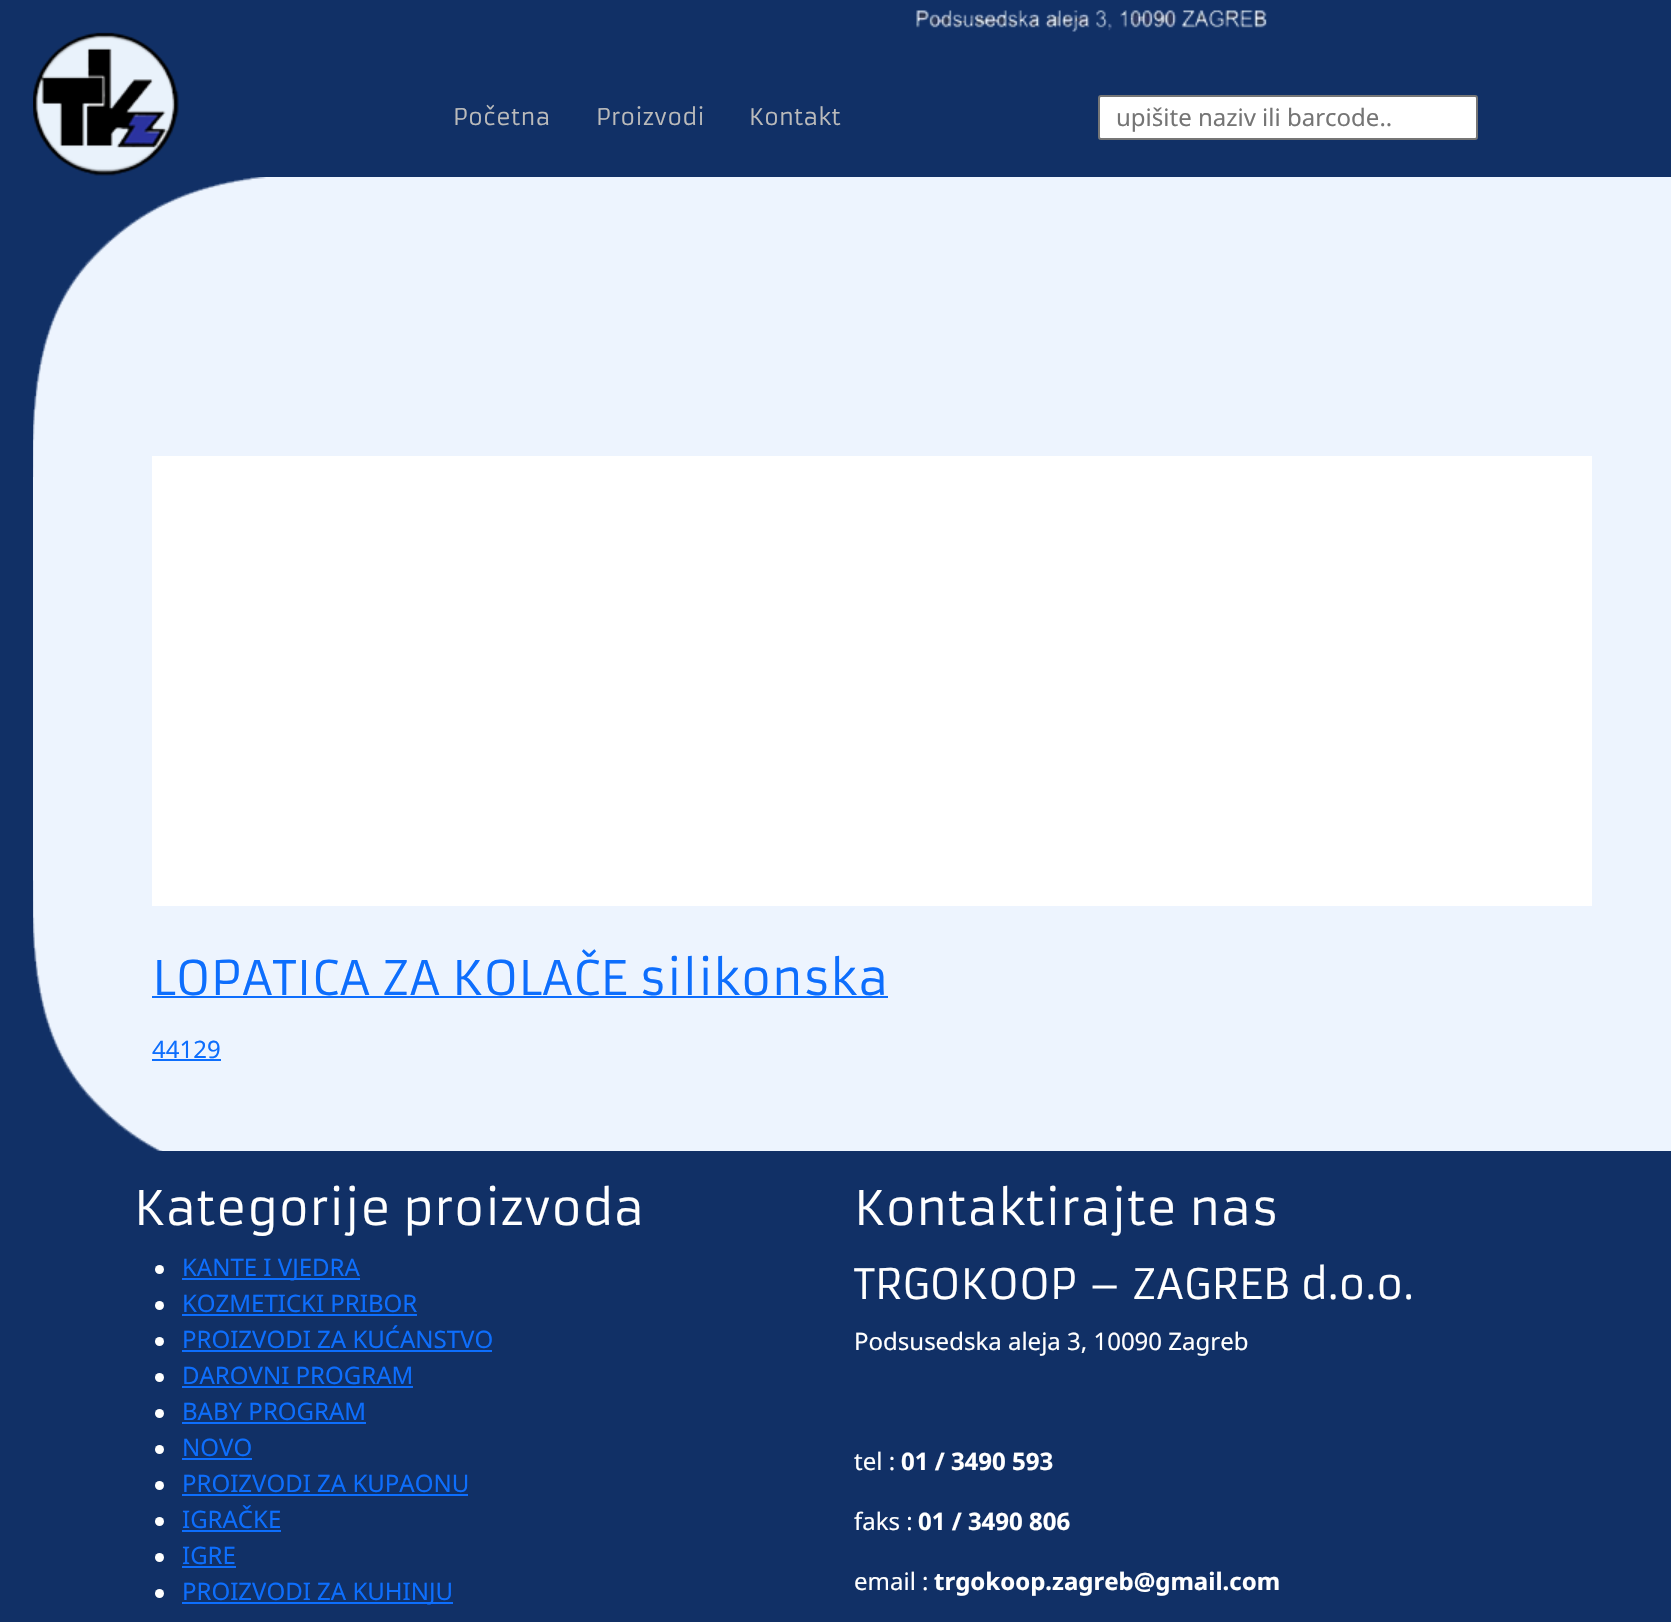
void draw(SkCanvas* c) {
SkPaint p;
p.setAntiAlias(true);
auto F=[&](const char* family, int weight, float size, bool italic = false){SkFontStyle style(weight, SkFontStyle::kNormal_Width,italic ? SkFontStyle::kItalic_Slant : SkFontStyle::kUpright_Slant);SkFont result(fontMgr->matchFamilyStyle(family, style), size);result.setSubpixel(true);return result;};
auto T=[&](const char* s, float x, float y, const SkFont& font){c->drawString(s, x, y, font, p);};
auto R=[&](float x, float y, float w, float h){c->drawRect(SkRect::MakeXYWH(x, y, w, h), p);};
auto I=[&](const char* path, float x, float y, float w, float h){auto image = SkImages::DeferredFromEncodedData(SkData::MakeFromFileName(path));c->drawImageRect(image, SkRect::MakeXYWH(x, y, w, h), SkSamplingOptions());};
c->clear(0xffedf4fe);
p.setColor(0xff113066);
R(0,0,33,1622);
R(33,0,1638,177);
I("1.png",916,10,351,22);
I("2.png",33,32,146,144);
p.setColor(0xffffffff);
R(152,456,1440,450);
I("3.png",33,177,233,300);
auto f1 = F("Armata",400,22.5);
p.setColor(0xffbbbbbb);
T("Početna",453,125,f1);
T("Proizvodi",596,125,f1);
T("Kontakt",749,125,f1);
p.setColor(0xffffffff);
c->drawRoundRect(SkRect::MakeXYWH(1099,96,378,43),2,2,p);
p.setStroke(true);
p.setStrokeWidth(2);
p.setColor(0xff767676);
c->drawRoundRect(SkRect::MakeXYWH(1099,96,378,43),2,2,p);
auto f2 = F("Noto Sans",400,24);
p.setStroke(false);
p.setColor(0xff757575);
T("upišite naziv ili barcode..",1116,126,f2);
auto f3 = F("Armata",400,46.8);
p.setColor(0xff0d6efd);
T("LOPATICA ZA KOLAČE silikonska",152,995,f3);
R(152,996,736,2);
T("44129",152,1058,f2);
R(152,1059,69,2);
p.setColor(0xff113066);
R(33,1151,1638,471);
I("4.png",33,880,130,271);
p.setColor(0xffffffff);
T("Kategorije proizvoda",134,1225,f3);
c->drawCircle(159.5,1269.5,4.5,p);
p.setColor(0xff0d6efd);
R(182,1278,178,2);
T("KANTE I VJEDRA",182,1276,f2);
p.setColor(0xffffffff);
c->drawCircle(159.5,1305.5,4.5,p);
p.setColor(0xff0d6efd);
T("KOZMETICKI PRIBOR",182,1312,f2);
R(182,1314,235,2);
p.setColor(0xffffffff);
c->drawCircle(159.5,1341.5,4.5,p);
p.setColor(0xff0d6efd);
T("PROIZVODI ZA KUĆANSTVO",182,1348,f2);
R(182,1350,310,2);
p.setColor(0xffffffff);
c->drawCircle(159.5,1377.5,4.5,p);
p.setColor(0xff0d6efd);
T("DAROVNI PROGRAM",182,1384,f2);
R(182,1386,231,2);
p.setColor(0xffffffff);
c->drawCircle(159.5,1413.5,4.5,p);
p.setColor(0xff0d6efd);
T("BABY PROGRAM",182,1420,f2);
R(182,1422,184,2);
p.setColor(0xffffffff);
c->drawCircle(159.5,1449.5,4.5,p);
p.setColor(0xff0d6efd);
T("NOVO",182,1456,f2);
R(182,1458,70,2);
p.setColor(0xffffffff);
c->drawCircle(159.5,1485.5,4.5,p);
p.setColor(0xff0d6efd);
T("PROIZVODI ZA KUPAONU",182,1492,f2);
R(182,1494,286,2);
p.setColor(0xffffffff);
c->drawCircle(159.5,1521.5,4.5,p);
p.setColor(0xff0d6efd);
T("IGRAČKE",182,1528,f2);
R(182,1530,99,2);
p.setColor(0xffffffff);
c->drawCircle(159.5,1557.5,4.5,p);
p.setColor(0xff0d6efd);
T("IGRE",182,1564,f2);
R(182,1566,54,2);
p.setColor(0xffffffff);
c->drawCircle(159.5,1593.5,4.5,p);
p.setColor(0xff0d6efd);
R(182,1602,271,2);
T("PROIZVODI ZA KUHINJU",182,1600,f2);
p.setColor(0xffffffff);
T("Kontaktirajte nas",854,1225,f3);
auto f4 = F("Armata",400,41.25);
T("TRGOKOOP – ZAGREB d.o.o.",854,1299,f4);
T("Podsusedska aleja 3, 10090 Zagreb",854,1350,f2);
T("tel :",854,1470,f2);
auto f5 = F("Noto Sans",700,24);
T("01 / 3490 593",901,1470,f5);
T("faks :",854,1530,f2);
T("01 / 3490 806",918,1530,f5);
T("email :",854,1590,f2);
T("trgokoop.zagreb@gmail.com",934,1590,f5);
}
